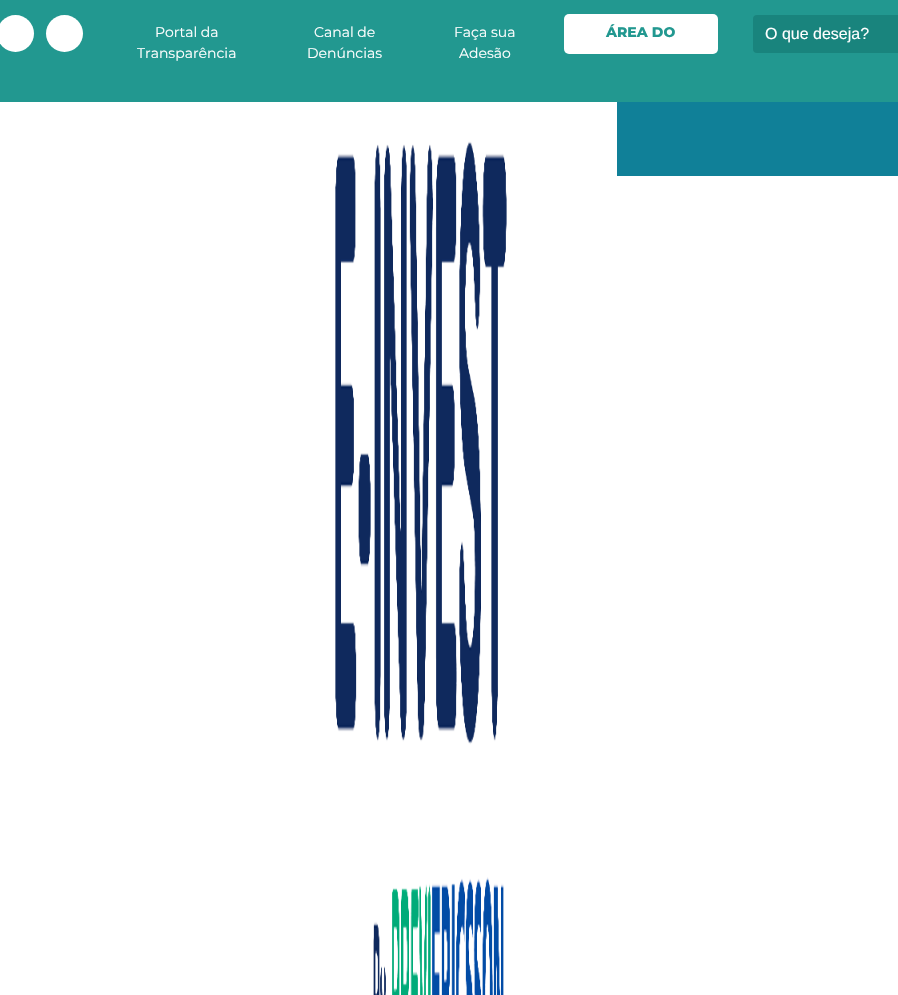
void draw(SkCanvas* c) {
SkPaint p;
p.setAntiAlias(true);
auto F=[&](const char* family, int weight, float size, bool italic = false){SkFontStyle style(weight, SkFontStyle::kNormal_Width,italic ? SkFontStyle::kItalic_Slant : SkFontStyle::kUpright_Slant);SkFont result(fontMgr->matchFamilyStyle(family, style), size);result.setSubpixel(true);return result;};
auto T=[&](const char* s, float x, float y, const SkFont& font){c->drawString(s, x, y, font, p);};
auto R=[&](float x, float y, float w, float h){c->drawRect(SkRect::MakeXYWH(x, y, w, h), p);};
auto Q=[&](float x, float y, float w, float h, float radius){c->drawRoundRect(SkRect::MakeXYWH(x, y, w, h), radius, radius, p);};
auto I=[&](const char* path, float x, float y, float w, float h){auto image = SkImages::DeferredFromEncodedData(SkData::MakeFromFileName(path));c->drawImageRect(image, SkRect::MakeXYWH(x, y, w, h), SkSamplingOptions());};
c->clear(0xffffffff);
p.setColor(0xff229890);
R(0,0,898,102);
p.setColor(0xffffffff);
c->drawCircle(15.5,33.5,18.5,p);
c->drawCircle(64.5,33.5,18.5,p);
auto f1 = F("Montserrat",400,14);
T("Portal da",155,37,f1);
T("Transparência",137,58,f1);
T("Canal de",314,37,f1);
T("Denúncias",307,58,f1);
T("Faça sua",454,37,f1);
T("Adesão",459,58,f1);
Q(564,14,154,40,5);
auto f2 = F("Montserrat",800,14);
p.setColor(0xff229890);
T("ÁREA DO",606,37,f2);
p.setColor(0xff19847d);
Q(753,15,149,38,4);
auto f3 = F("Liberation Sans",400,16);
p.setColor(0xffffffff);
T("O que deseja?",765,39,f3);
I("1.png",335,141,172,854);
p.setColor(0xff108098);
R(617,102,281,74);
}
